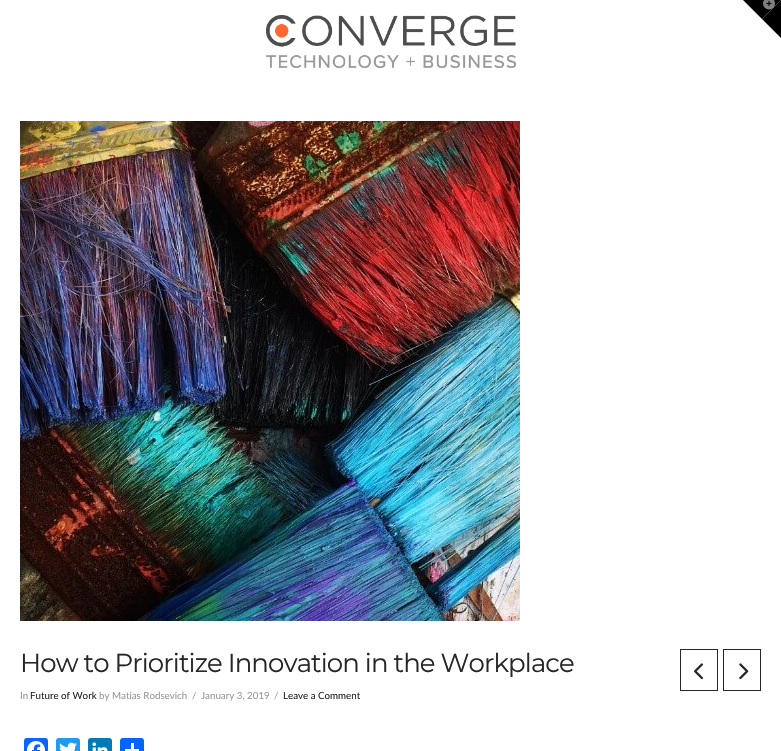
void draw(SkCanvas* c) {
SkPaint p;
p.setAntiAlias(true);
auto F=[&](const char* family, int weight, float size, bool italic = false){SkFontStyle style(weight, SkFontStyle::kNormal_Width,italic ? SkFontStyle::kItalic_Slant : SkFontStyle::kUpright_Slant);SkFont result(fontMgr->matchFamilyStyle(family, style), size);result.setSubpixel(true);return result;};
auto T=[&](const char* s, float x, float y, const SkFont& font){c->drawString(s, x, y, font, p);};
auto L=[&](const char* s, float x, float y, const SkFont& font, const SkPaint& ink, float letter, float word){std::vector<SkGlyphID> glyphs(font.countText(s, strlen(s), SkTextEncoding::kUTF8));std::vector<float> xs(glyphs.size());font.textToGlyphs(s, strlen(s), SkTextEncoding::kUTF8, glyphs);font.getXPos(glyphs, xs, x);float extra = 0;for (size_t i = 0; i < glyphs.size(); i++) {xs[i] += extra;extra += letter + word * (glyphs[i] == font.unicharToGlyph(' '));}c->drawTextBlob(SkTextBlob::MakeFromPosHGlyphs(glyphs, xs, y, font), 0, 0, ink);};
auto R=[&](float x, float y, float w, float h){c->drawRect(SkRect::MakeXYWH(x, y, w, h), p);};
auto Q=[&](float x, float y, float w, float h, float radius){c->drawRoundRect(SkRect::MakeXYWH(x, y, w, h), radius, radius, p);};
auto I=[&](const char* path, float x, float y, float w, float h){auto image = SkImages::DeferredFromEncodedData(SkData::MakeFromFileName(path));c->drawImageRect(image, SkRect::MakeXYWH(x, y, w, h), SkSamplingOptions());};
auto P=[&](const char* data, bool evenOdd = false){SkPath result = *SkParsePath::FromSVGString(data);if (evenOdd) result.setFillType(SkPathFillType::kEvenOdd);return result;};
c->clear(0xffffffff);
p.setColor(0xff000000);
c->drawPath(P("M743 0h38l-19 19z"),p);
c->drawPath(P("M781 0v38l-19-19z"),p);
I("1.png",763,0,12,10);
I("2.png",266,15,250,53);
I("3.png",20,121,500,500);
auto f1 = F("Montserrat",100,26);
p.setColor(0xff272727);
L("How to Prioritize Innovation in the Workplace",20,672,f1,p,-.9,0);
p.setStroke(true);
p.setStrokeWidth(1);
c->drawRect(SkRect::MakeXYWH(680.5,649.5,37,41),p);
I("4.png",694,663,9,17);
c->drawRect(SkRect::MakeXYWH(723.5,649.5,37,41),p);
I("5.png",739,663,10,17);
auto f2 = F("Lato",400,9.75);
p.setStroke(false);
p.setColor(0xff999999);
T("In",20,699,f2);
p.setColor(0xff272727);
T("Future of Work",30,699,f2);
p.setColor(0xff999999);
T("by Matias Rodsevich",99,699,f2);
T("/",192,699,f2);
T("January 3, 2019",201,699,f2);
T("/",274,699,f2);
p.setColor(0xff272727);
T("Leave a Comment",283,699,f2);
p.setColor(0xff0866ff);
Q(24,738,24,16,3);
I("6.png",27,741,18,10);
p.setColor(0xff1d9bf0);
Q(56,738,24,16,3);
I("7.png",59,742,18,9);
p.setColor(0xff007bb5);
Q(88,738,24,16,3);
I("8.png",92,742,16,9);
p.setColor(0xff0166ff);
Q(120,738,24,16,3);
p.setColor(0xffffffff);
R(131,743,3,8);
R(125,749,14,2);
}
